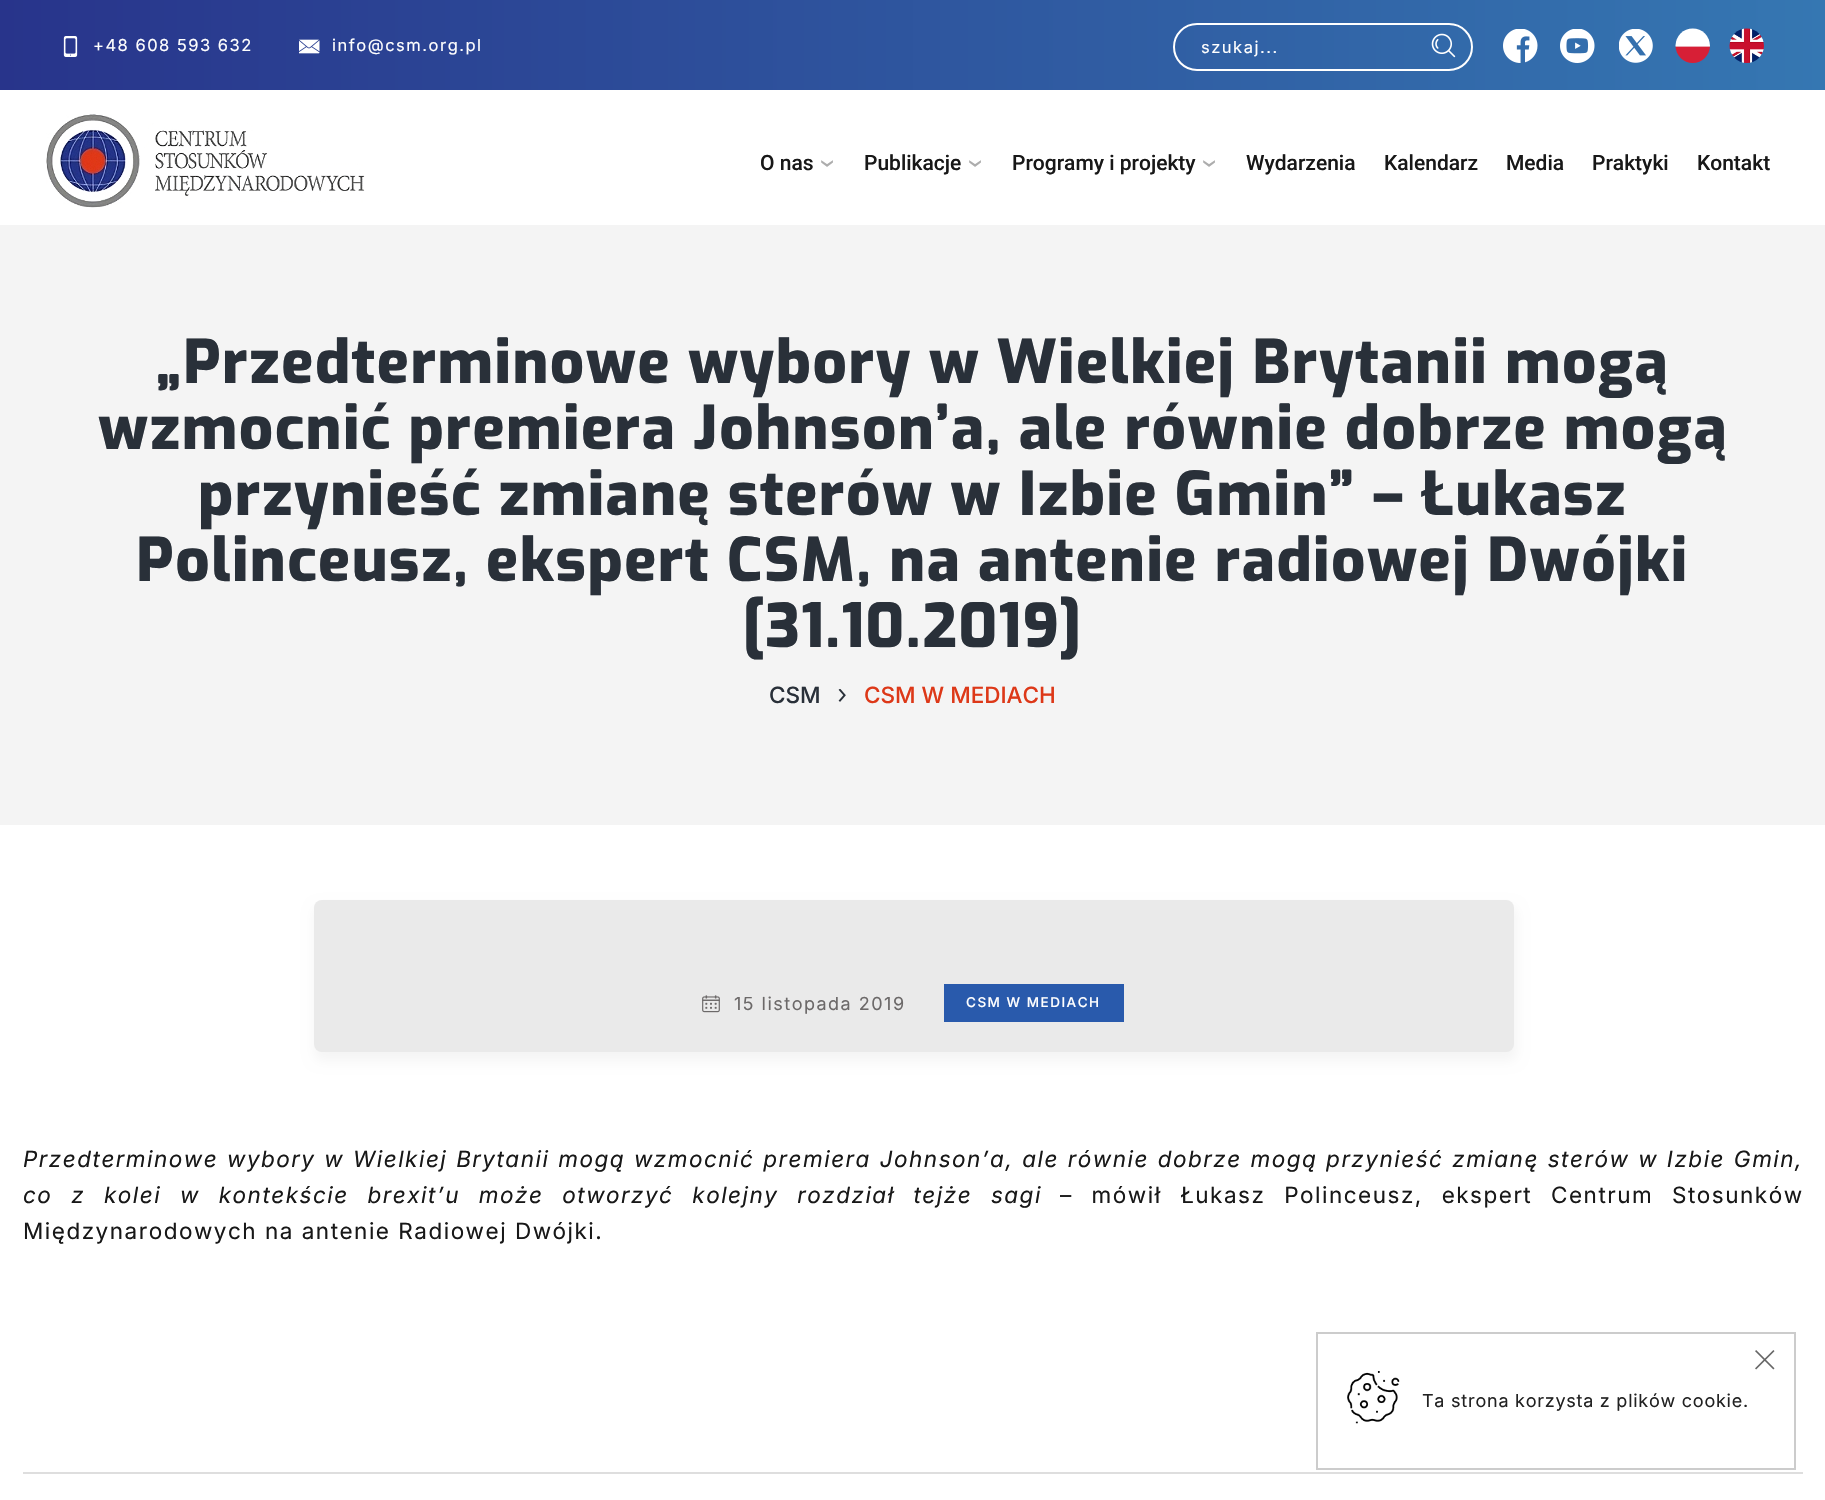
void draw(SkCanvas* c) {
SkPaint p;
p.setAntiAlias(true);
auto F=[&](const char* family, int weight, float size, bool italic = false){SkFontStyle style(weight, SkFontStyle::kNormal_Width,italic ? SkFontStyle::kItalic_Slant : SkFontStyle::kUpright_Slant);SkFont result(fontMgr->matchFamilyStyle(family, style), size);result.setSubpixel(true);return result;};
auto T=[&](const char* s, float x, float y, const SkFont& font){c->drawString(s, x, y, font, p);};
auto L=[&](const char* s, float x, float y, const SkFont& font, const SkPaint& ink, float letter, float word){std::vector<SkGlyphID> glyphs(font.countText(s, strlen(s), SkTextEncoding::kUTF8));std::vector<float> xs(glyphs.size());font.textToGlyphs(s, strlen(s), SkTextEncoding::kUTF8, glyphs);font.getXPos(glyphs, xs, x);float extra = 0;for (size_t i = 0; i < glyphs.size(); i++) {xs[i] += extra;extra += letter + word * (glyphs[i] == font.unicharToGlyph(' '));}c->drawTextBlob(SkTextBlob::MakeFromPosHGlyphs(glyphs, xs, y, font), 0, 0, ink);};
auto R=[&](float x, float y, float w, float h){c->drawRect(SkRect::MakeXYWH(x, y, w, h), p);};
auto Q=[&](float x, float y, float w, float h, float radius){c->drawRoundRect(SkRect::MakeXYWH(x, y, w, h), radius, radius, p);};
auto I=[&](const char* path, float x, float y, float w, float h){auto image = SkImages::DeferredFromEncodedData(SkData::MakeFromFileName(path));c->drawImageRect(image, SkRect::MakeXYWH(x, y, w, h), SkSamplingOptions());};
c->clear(0xffffffff);
{
const SkColor colors[] = {0xff28348b,0xff3577b2};
const float stops[] = {0,1};
const SkPoint ends[] = {{0,45}, {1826,45}};
p.setShader(SkGradientShader::MakeLinear(ends, colors, stops, 2, SkTileMode::kClamp));
p.setAlpha(255);
}
R(0,0,1825,90);
I("1.png",63,36,15,21);
auto f1 = F("Inter",400,16.5);
p.setShader(nullptr);
p.setColor(0xffffffff);
L("+48 608 593 632",93,51,f1,p,1.5,0);
I("2.png",299,39,21,15);
L("info@csm.org.pl",332,51,f1,p,1.5,0);
p.setStroke(true);
p.setStrokeWidth(2);
c->drawRoundRect(SkRect::MakeXYWH(1174,24,298,46),23,23,p);
p.setStroke(false);
L("szukaj...",1201,53,f1,p,1.5,0);
I("3.png",1431,33,25,25);
I("4.png",1503,29,35,34);
I("5.png",1560,29,35,34);
I("6.png",1619,29,34,34);
I("7.png",1675,28,35,35);
I("8.png",1729,28,35,35);
I("9.png",46,114,319,94);
auto f2 = F("Roboto",500,21);
p.setColor(0xff181818);
T("O nas",760,170,f2);
auto f3 = F("Roboto",400,30);
p.setColor(0xffadadad);
c->save();
c->rotate(90,819,159);
L("›",819,159,f3,p,1.5,0);
c->restore();
p.setColor(0xff181818);
T("Publikacje",864,170,f2);
p.setColor(0xffadadad);
c->save();
c->rotate(90,967,159);
L("›",967,159,f3,p,1.5,0);
c->restore();
p.setColor(0xff181818);
T("Programy i projekty",1012,170,f2);
p.setColor(0xffadadad);
c->save();
c->rotate(90,1201,159);
L("›",1201,159,f3,p,1.5,0);
c->restore();
p.setColor(0xff181818);
T("Wydarzenia",1246,170,f2);
T("Kalendarz",1384,170,f2);
T("Media",1506,170,f2);
T("Praktyki",1592,170,f2);
T("Kontakt",1697,170,f2);
p.setColor(0xfff4f4f4);
R(0,225,1825,600);
auto f4 = F("Exo",800,60);
p.setColor(0xff293039);
L("„Przedterminowe wybory w Wielkiej Brytanii mogą",156,383,f4,p,1.5,0);
L("wzmocnić premiera Johnson’a, ale równie dobrze mogą",98,449,f4,p,1.5,0);
L("przynieść zmianę sterów w Izbie Gmin” – Łukasz",198,515,f4,p,1.5,0);
L("Polinceusz, ekspert CSM, na antenie radiowej Dwójki",136,581,f4,p,1.5,0);
L("[31.10.2019]",743,647,f4,p,1.5,0);
auto f5 = F("Inter",500,22.5);
T("CSM",769,703,f5);
I("10.png",838,689,8,13);
p.setColor(0xffdd3818);
T("CSM W MEDIACH",864,703,f5);
p.setColor(0x0a000000);
p.setMaskFilter(SkMaskFilter::MakeBlur(kNormal_SkBlurStyle, 6));
c->drawRoundRect(SkRect::MakeXYWH(314,906,1203,155),9,9,p);
p.setMaskFilter(nullptr);
p.setColor(0xffeaeaea);
Q(314,900,1200,152,8);
I("11.png",702,995,18,18);
auto f6 = F("Inter",400,18);
p.setColor(0xff6c6969);
L("15 listopada 2019",734,1010,f6,p,1.5,0);
p.setColor(0xff295aac);
R(944,984,180,38);
auto f7 = F("Inter",500,13.5);
p.setColor(0xffffffff);
L("CSM W MEDIACH",966,1007,f7,p,1.5,0);
auto f8 = F("Inter",400,22.5,true);
p.setColor(0xff181818);
L("Przedterminowe wybory w Wielkiej Brytanii mogą wzmocnić premiera Johnson’a, ale równie dobrze mogą przynieść zmianę sterów w Izbie Gmin,",23,1167,f8,p,1.5,1);
L("co z kolei w kontekście brexit’u może otworzyć kolejny rozdział tejże sagi",23,1203,f8,p,1.5,11);
auto f9 = F("Inter",400,22.5);
L("– mówił Łukasz Polinceusz, ekspert Centrum Stosunków",1060,1203,f9,p,1.5,11);
L("Międzynarodowych na antenie Radiowej Dwójki.",23,1239,f9,p,1.5,0);
p.setColor(0xffdedede);
R(23,1472,1780,2);
p.setStroke(true);
p.setColor(0xffcccccc);
c->drawRect(SkRect::MakeXYWH(1317,1333,478,136),p);
I("12.png",1755,1350,20,20);
I("13.png",1347,1371,53,53);
p.setStroke(false);
p.setColor(0xff222222);
L("Ta strona korzysta z plików cookie.",1422,1407,f6,p,.75,0);
}
